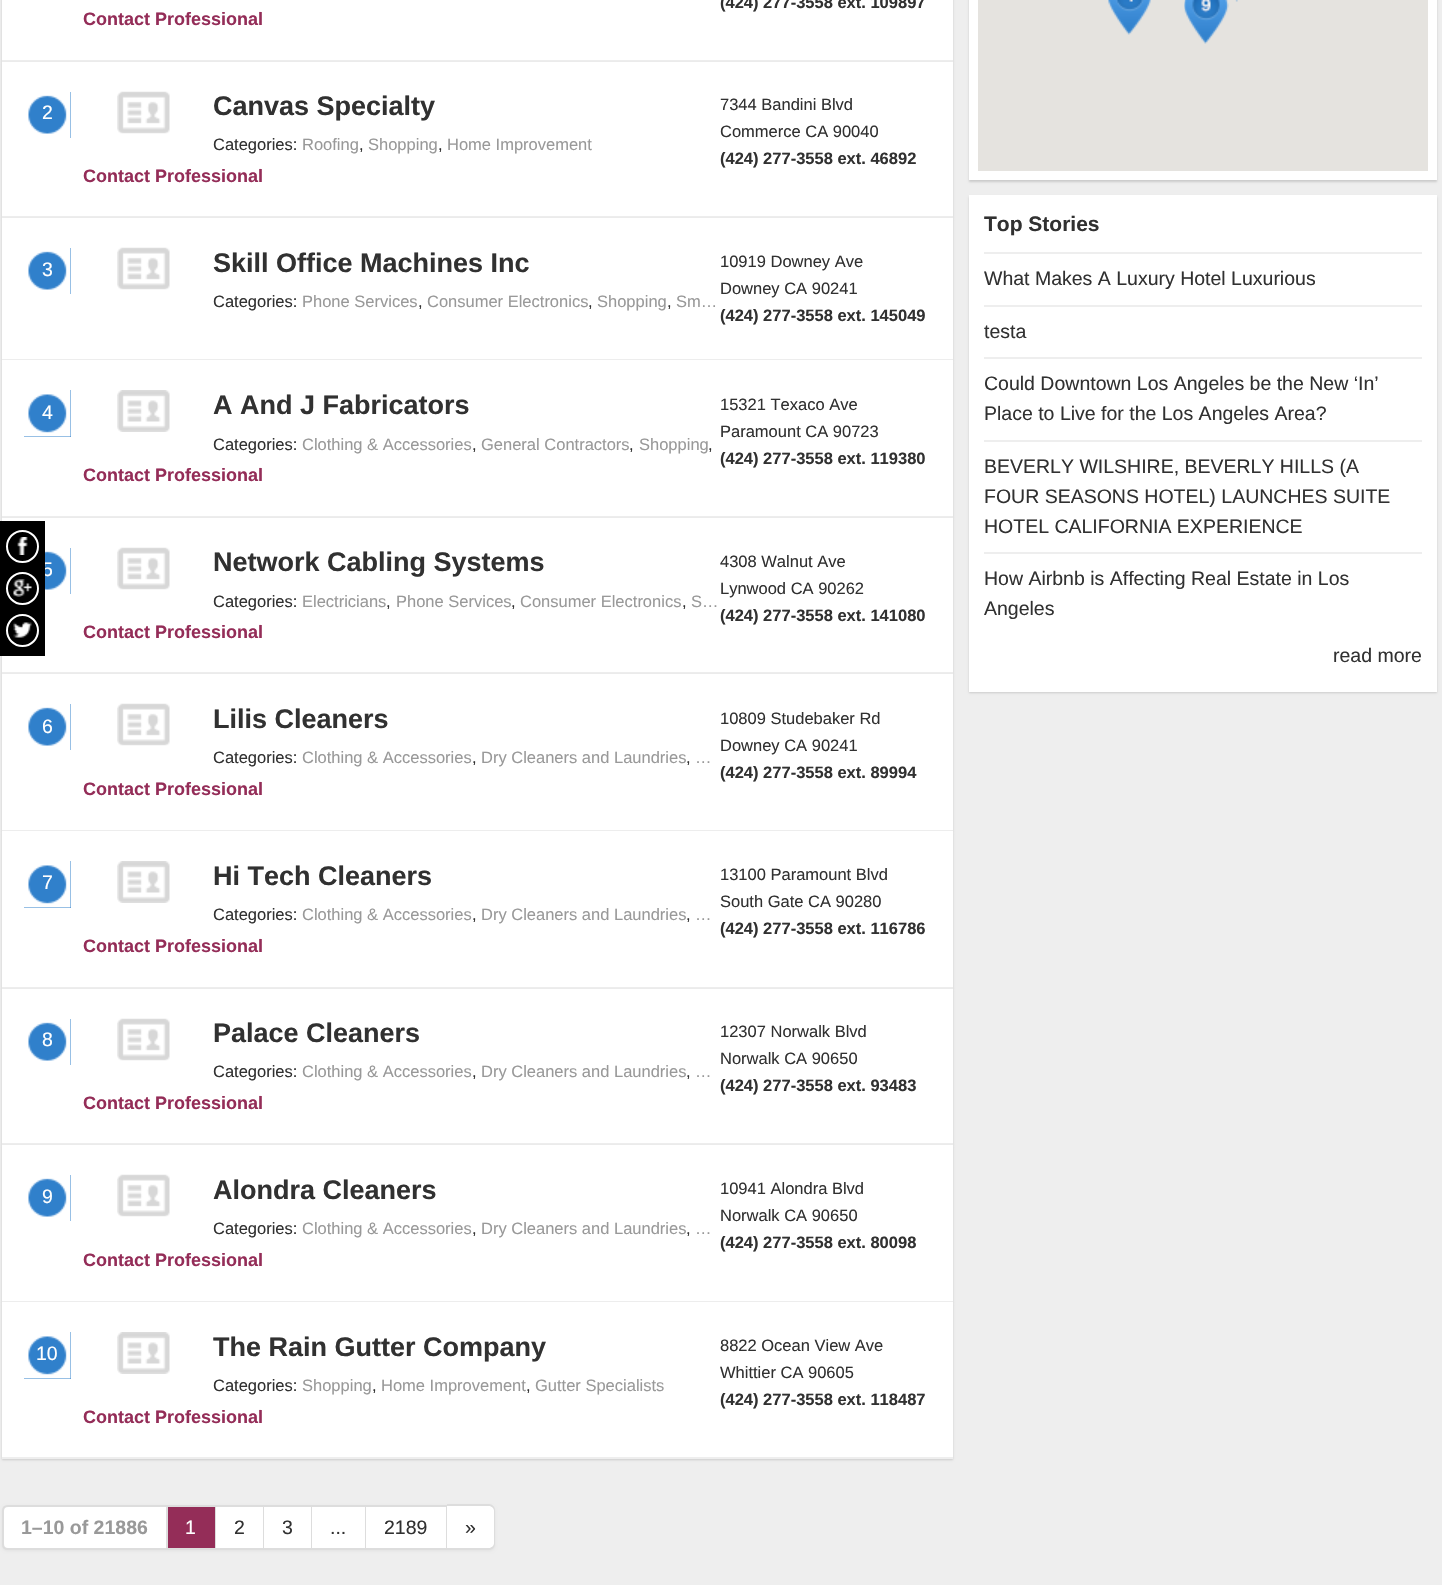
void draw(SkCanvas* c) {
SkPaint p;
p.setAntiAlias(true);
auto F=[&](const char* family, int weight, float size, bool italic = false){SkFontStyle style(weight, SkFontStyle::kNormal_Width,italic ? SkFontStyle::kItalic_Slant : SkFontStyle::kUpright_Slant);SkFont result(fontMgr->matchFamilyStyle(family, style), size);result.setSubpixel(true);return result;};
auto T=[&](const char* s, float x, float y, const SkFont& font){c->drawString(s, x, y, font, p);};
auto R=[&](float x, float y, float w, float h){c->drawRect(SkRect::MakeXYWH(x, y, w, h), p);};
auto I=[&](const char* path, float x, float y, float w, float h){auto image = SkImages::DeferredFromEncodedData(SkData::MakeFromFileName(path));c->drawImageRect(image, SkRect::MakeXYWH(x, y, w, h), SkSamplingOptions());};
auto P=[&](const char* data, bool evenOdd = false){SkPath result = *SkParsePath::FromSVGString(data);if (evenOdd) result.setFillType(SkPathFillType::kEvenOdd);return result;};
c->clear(0xffeeeeee);
p.setColor(0xffcbcbcb);
p.setMaskFilter(SkMaskFilter::MakeBlur(kNormal_SkBlurStyle, 1));
c->drawRect(SkRect::MakeXYWH(2,-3,951,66),p);
p.setMaskFilter(nullptr);
p.setColor(0xffffffff);
R(2,0,951,60);
p.setColor(0xffeeeeee);
R(2,60,951,2);
auto f1 = F("Liberation Sans",700,16.5);
p.setColor(0xff313131);
T("(424) 277-3558 ext. 109897",720,8,f1);
auto f2 = F("Liberation Sans",700,18);
p.setColor(0xff942d58);
T("Contact Professional",83,25,f2);
p.setColor(0xffcbcbcb);
p.setMaskFilter(SkMaskFilter::MakeBlur(kNormal_SkBlurStyle, 1));
c->drawRect(SkRect::MakeXYWH(2,63,951,156),p);
p.setMaskFilter(nullptr);
p.setColor(0xffffffff);
R(2,62,951,154);
p.setColor(0xffeeeeee);
R(2,216,951,2);
p.setColor(0xff3080cb);
R(28,92,43,46);
I("1.png",24,92,47,46);
auto f3 = F("Liberation Sans",400,19.5);
p.setColor(0xffffffff);
T("2",42,119,f3);
I("2.png",117,91,53,43);
auto f4 = F("Liberation Sans",700,27);
p.setColor(0xff313131);
T("Canvas Specialty",213,115,f4);
auto f5 = F("Liberation Sans",400,16.5);
T("Categories:",213,150,f5);
p.setColor(0xff999999);
T("Roofing",302,150,f5);
p.setColor(0xff313131);
T(",",359,150,f5);
p.setColor(0xff999999);
T("Shopping",368,150,f5);
p.setColor(0xff313131);
T(",",438,150,f5);
p.setColor(0xff999999);
T("Home Improvement",447,150,f5);
p.setColor(0xff942d58);
T("Contact Professional",83,182,f2);
p.setColor(0xff313131);
T("7344 Bandini Blvd",720,110,f5);
T("Commerce CA 90040",720,137,f5);
T("(424) 277-3558 ext. 46892",720,164,f1);
p.setColor(0xffcbcbcb);
p.setMaskFilter(SkMaskFilter::MakeBlur(kNormal_SkBlurStyle, 1));
c->drawRect(SkRect::MakeXYWH(2,219,951,143),p);
p.setMaskFilter(nullptr);
p.setColor(0xffffffff);
R(2,218,951,141);
p.setColor(0xffeeeeee);
R(2,359,951,1);
p.setColor(0xff3080cb);
R(28,248,43,46);
I("1.png",24,248,47,46);
p.setColor(0xffffffff);
T("3",42,276,f3);
I("2.png",117,247,53,43);
p.setColor(0xff313131);
T("Skill Office Machines Inc",213,272,f4);
T("Categories:",213,307,f5);
p.setColor(0xff999999);
T("Phone Services",302,307,f5);
p.setColor(0xff313131);
T(",",418,307,f5);
p.setColor(0xff999999);
T("Consumer Electronics",427,307,f5);
p.setColor(0xff313131);
T(",",588,307,f5);
p.setColor(0xff999999);
T("Shopping",597,307,f5);
p.setColor(0xff313131);
T(",",667,307,f5);
p.setColor(0xff999999);
T("Sm…",676,307,f5);
p.setColor(0xff313131);
T("10919 Downey Ave",720,267,f5);
T("Downey CA 90241",720,294,f5);
T("(424) 277-3558 ext. 145049",720,321,f1);
p.setColor(0xffcbcbcb);
p.setMaskFilter(SkMaskFilter::MakeBlur(kNormal_SkBlurStyle, 1));
c->drawRect(SkRect::MakeXYWH(2,362,951,157),p);
p.setMaskFilter(nullptr);
p.setColor(0xffffffff);
R(2,360,951,156);
p.setColor(0xffeeeeee);
R(2,516,951,2);
p.setColor(0xff3080cb);
R(24,390,47,47);
I("3.png",24,390,47,47);
p.setColor(0xffffffff);
T("4",42,419,f3);
I("4.png",117,390,53,42);
p.setColor(0xff313131);
T("A And J Fabricators",213,414,f4);
T("Categories:",213,450,f5);
p.setColor(0xff999999);
T("Clothing & Accessories",302,450,f5);
p.setColor(0xff313131);
T(",",472,450,f5);
p.setColor(0xff999999);
T("General Contractors",481,450,f5);
p.setColor(0xff313131);
T(",",629,450,f5);
p.setColor(0xff999999);
T("Shopping",639,450,f5);
p.setColor(0xff313131);
T(",",708,450,f5);
p.setColor(0xff942d58);
T("Contact Professional",83,481,f2);
p.setColor(0xff313131);
T("15321 Texaco Ave",720,410,f5);
T("Paramount CA 90723",720,437,f5);
T("(424) 277-3558 ext. 119380",720,464,f1);
p.setColor(0xffcbcbcb);
p.setMaskFilter(SkMaskFilter::MakeBlur(kNormal_SkBlurStyle, 1));
c->drawRect(SkRect::MakeXYWH(2,519,951,156),p);
p.setMaskFilter(nullptr);
p.setColor(0xffffffff);
R(2,518,951,154);
p.setColor(0xffeeeeee);
R(2,672,951,2);
p.setColor(0xff3080cb);
R(45,548,26,46);
I("5.png",45,548,26,46);
p.setColor(0xffffffff);
T("5",42,576,f3);
I("2.png",117,547,53,43);
p.setColor(0xff313131);
T("Network Cabling Systems",213,571,f4);
T("Categories:",213,607,f5);
p.setColor(0xff999999);
T("Electricians",302,607,f5);
p.setColor(0xff313131);
T(",",386,607,f5);
p.setColor(0xff999999);
T("Phone Services",396,607,f5);
p.setColor(0xff313131);
T(",",511,607,f5);
p.setColor(0xff999999);
T("Consumer Electronics",520,607,f5);
p.setColor(0xff313131);
T(",",682,607,f5);
p.setColor(0xff999999);
T("S…",691,607,f5);
p.setColor(0xff942d58);
T("Contact Professional",83,638,f2);
p.setColor(0xff313131);
T("4308 Walnut Ave",720,567,f5);
T("Lynwood CA 90262",720,594,f5);
T("(424) 277-3558 ext. 141080",720,621,f1);
p.setColor(0xffcbcbcb);
p.setMaskFilter(SkMaskFilter::MakeBlur(kNormal_SkBlurStyle, 1));
c->drawRect(SkRect::MakeXYWH(2,675,951,158),p);
p.setMaskFilter(nullptr);
p.setColor(0xffffffff);
R(2,674,951,156);
p.setColor(0xffeeeeee);
R(2,830,951,1);
p.setColor(0xff3080cb);
R(28,704,43,46);
I("1.png",24,704,47,46);
p.setColor(0xffffffff);
T("6",42,733,f3);
I("2.png",117,703,53,43);
p.setColor(0xff313131);
T("Lilis Cleaners",213,728,f4);
T("Categories:",213,763,f5);
p.setColor(0xff999999);
T("Clothing & Accessories",302,763,f5);
p.setColor(0xff313131);
T(",",472,763,f5);
p.setColor(0xff999999);
T("Dry Cleaners and Laundries",481,763,f5);
p.setColor(0xff313131);
T(",",686,763,f5);
p.setColor(0xff999999);
T("…",695,763,f5);
p.setColor(0xff942d58);
T("Contact Professional",83,795,f2);
p.setColor(0xff313131);
T("10809 Studebaker Rd",720,724,f5);
T("Downey CA 90241",720,751,f5);
T("(424) 277-3558 ext. 89994",720,778,f1);
p.setColor(0xffcbcbcb);
p.setMaskFilter(SkMaskFilter::MakeBlur(kNormal_SkBlurStyle, 1));
c->drawRect(SkRect::MakeXYWH(2,833,951,157),p);
p.setMaskFilter(nullptr);
p.setColor(0xffffffff);
R(2,831,951,156);
p.setColor(0xffeeeeee);
R(2,987,951,2);
p.setColor(0xff3080cb);
R(24,861,47,47);
I("3.png",24,861,47,47);
p.setColor(0xffffffff);
T("7",42,889,f3);
I("4.png",117,861,53,42);
p.setColor(0xff313131);
T("Hi Tech Cleaners",213,885,f4);
T("Categories:",213,920,f5);
p.setColor(0xff999999);
T("Clothing & Accessories",302,920,f5);
p.setColor(0xff313131);
T(",",472,920,f5);
p.setColor(0xff999999);
T("Dry Cleaners and Laundries",481,920,f5);
p.setColor(0xff313131);
T(",",686,920,f5);
p.setColor(0xff999999);
T("…",695,920,f5);
p.setColor(0xff942d58);
T("Contact Professional",83,952,f2);
p.setColor(0xff313131);
T("13100 Paramount Blvd",720,880,f5);
T("South Gate CA 90280",720,907,f5);
T("(424) 277-3558 ext. 116786",720,934,f1);
p.setColor(0xffcbcbcb);
p.setMaskFilter(SkMaskFilter::MakeBlur(kNormal_SkBlurStyle, 1));
c->drawRect(SkRect::MakeXYWH(2,990,951,156),p);
p.setMaskFilter(nullptr);
p.setColor(0xffffffff);
R(2,989,951,154);
p.setColor(0xffeeeeee);
R(2,1143,951,2);
p.setColor(0xff3080cb);
R(28,1019,43,46);
I("1.png",24,1019,47,46);
p.setColor(0xffffffff);
T("8",42,1046,f3);
I("2.png",117,1018,53,43);
p.setColor(0xff313131);
T("Palace Cleaners",213,1042,f4);
T("Categories:",213,1077,f5);
p.setColor(0xff999999);
T("Clothing & Accessories",302,1077,f5);
p.setColor(0xff313131);
T(",",472,1077,f5);
p.setColor(0xff999999);
T("Dry Cleaners and Laundries",481,1077,f5);
p.setColor(0xff313131);
T(",",686,1077,f5);
p.setColor(0xff999999);
T("…",695,1077,f5);
p.setColor(0xff942d58);
T("Contact Professional",83,1109,f2);
p.setColor(0xff313131);
T("12307 Norwalk Blvd",720,1037,f5);
T("Norwalk CA 90650",720,1064,f5);
T("(424) 277-3558 ext. 93483",720,1091,f1);
p.setColor(0xffcbcbcb);
p.setMaskFilter(SkMaskFilter::MakeBlur(kNormal_SkBlurStyle, 1));
c->drawRect(SkRect::MakeXYWH(2,1146,951,158),p);
p.setMaskFilter(nullptr);
p.setColor(0xffffffff);
R(2,1145,951,156);
p.setColor(0xffeeeeee);
R(2,1301,951,1);
p.setColor(0xff3080cb);
R(28,1175,43,46);
I("1.png",24,1175,47,46);
p.setColor(0xffffffff);
T("9",42,1203,f3);
I("2.png",117,1174,53,43);
p.setColor(0xff313131);
T("Alondra Cleaners",213,1199,f4);
T("Categories:",213,1234,f5);
p.setColor(0xff999999);
T("Clothing & Accessories",302,1234,f5);
p.setColor(0xff313131);
T(",",472,1234,f5);
p.setColor(0xff999999);
T("Dry Cleaners and Laundries",481,1234,f5);
p.setColor(0xff313131);
T(",",686,1234,f5);
p.setColor(0xff999999);
T("…",695,1234,f5);
p.setColor(0xff942d58);
T("Contact Professional",83,1266,f2);
p.setColor(0xff313131);
T("10941 Alondra Blvd",720,1194,f5);
T("Norwalk CA 90650",720,1221,f5);
T("(424) 277-3558 ext. 80098",720,1248,f1);
p.setColor(0xffcbcbcb);
p.setMaskFilter(SkMaskFilter::MakeBlur(kNormal_SkBlurStyle, 1));
c->drawRect(SkRect::MakeXYWH(2,1304,951,156),p);
p.setMaskFilter(nullptr);
p.setColor(0xffffffff);
R(2,1302,951,155);
p.setColor(0xffeeeeee);
R(2,1457,951,2);
p.setColor(0xff3080cb);
R(24,1332,47,47);
I("3.png",24,1332,47,47);
p.setColor(0xffffffff);
T("10",36,1360,f3);
I("4.png",117,1332,53,42);
p.setColor(0xff313131);
T("The Rain Gutter Company",213,1356,f4);
T("Categories:",213,1391,f5);
p.setColor(0xff999999);
T("Shopping",302,1391,f5);
p.setColor(0xff313131);
T(",",372,1391,f5);
p.setColor(0xff999999);
T("Home Improvement",381,1391,f5);
p.setColor(0xff313131);
T(",",526,1391,f5);
p.setColor(0xff999999);
T("Gutter Specialists",535,1391,f5);
p.setColor(0xff942d58);
T("Contact Professional",83,1423,f2);
p.setColor(0xff313131);
T("8822 Ocean View Ave",720,1351,f5);
T("Whittier CA 90605",720,1378,f5);
T("(424) 277-3558 ext. 118487",720,1405,f1);
p.setColor(0x0d000000);
p.setMaskFilter(SkMaskFilter::MakeBlur(kNormal_SkBlurStyle, 1.5));
c->drawRoundRect(SkRect::MakeXYWH(2,1506,493,45),6,6,p);
p.setMaskFilter(nullptr);
p.setColor(0xffffffff);
c->drawPath(P("M8 1506h159v43h-159c-3 0-5-2-5-5v-33c0-3 2-5 5-5z"),p);
p.setStroke(true);
p.setStrokeWidth(2);
p.setColor(0xffdddddd);
c->drawPath(P("M8 1506h159v43h-159c-3 0-5-2-5-5v-33c0-3 2-5 5-5z"),p);
auto f6 = F("Liberation Sans",700,19.5);
p.setStroke(false);
p.setColor(0xff999999);
T("1–10 of 21886",21,1534,f6);
p.setColor(0xff942d58);
R(168,1507,47,41);
p.setColor(0xffdddddd);
R(168,1505,279,2);
R(215,1505,1,45);
R(168,1548,48,2);
p.setColor(0xffffffff);
T("1",185,1534,f3);
R(216,1507,47,41);
p.setColor(0xffdddddd);
R(263,1505,1,45);
R(216,1548,48,2);
p.setColor(0xff313131);
T("2",234,1534,f3);
p.setColor(0xffffffff);
R(264,1507,47,41);
p.setColor(0xffdddddd);
R(311,1505,1,45);
R(264,1548,48,2);
p.setColor(0xff313131);
T("3",282,1534,f3);
p.setColor(0xffffffff);
R(312,1507,53,41);
p.setColor(0xffdddddd);
R(365,1505,1,45);
R(312,1548,54,2);
p.setColor(0xff313131);
T("...",330,1534,f3);
p.setColor(0xffffffff);
R(366,1507,80,41);
p.setColor(0xffdddddd);
R(446,1505,1,45);
R(366,1548,81,2);
p.setColor(0xff313131);
T("2189",384,1534,f3);
p.setColor(0xffffffff);
c->drawPath(P("M447 1506h42c3 0 5 2 5 5v32c0 3-2 5-5 5h-42z"),p);
p.setColor(0xffdddddd);
c->drawPath(P("M447 1504h42c3 0 6 3 6 6v34c0 3-3 6-6 6h-42zm0 2h42c2 0 5 2 5 4v34c0 2-3 4-5 4h-42z",true),p);
p.setColor(0xff313131);
T("»",465,1534,f3);
p.setColor(0xffcbcbcb);
p.setMaskFilter(SkMaskFilter::MakeBlur(kNormal_SkBlurStyle, 1));
c->drawRect(SkRect::MakeXYWH(969,-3,468,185),p);
p.setMaskFilter(nullptr);
p.setColor(0xffffffff);
R(969,0,468,180);
p.setColor(0xffe5e3df);
R(978,0,450,171);
I("7.png",1147,0,3,4);
I("6.png",1108,0,43,35);
I("8.png",1184,0,45,44);
I("9.png",1235,0,3,2);
p.setColor(0xffcbcbcb);
p.setMaskFilter(SkMaskFilter::MakeBlur(kNormal_SkBlurStyle, 1));
c->drawRect(SkRect::MakeXYWH(969,197,468,496),p);
p.setMaskFilter(nullptr);
p.setColor(0xffffffff);
R(969,195,468,497);
auto f7 = F("Liberation Sans",700,21);
p.setColor(0xff313131);
T("Top Stories",984,231,f7);
p.setColor(0xffeeeeee);
R(984,252,438,2);
p.setColor(0xff313131);
T("What Makes A Luxury Hotel Luxurious",984,285,f3);
p.setColor(0xffeeeeee);
R(984,305,438,2);
p.setColor(0xff313131);
T("testa",984,338,f3);
p.setColor(0xffeeeeee);
R(984,357,438,2);
p.setColor(0xff313131);
T("Could Downtown Los Angeles be the New ‘In’",984,390,f3);
T("Place to Live for the Los Angeles Area?",984,420,f3);
p.setColor(0xffeeeeee);
R(984,440,438,2);
p.setColor(0xff313131);
T("BEVERLY WILSHIRE, BEVERLY HILLS (A",984,473,f3);
T("FOUR SEASONS HOTEL) LAUNCHES SUITE",984,503,f3);
T("HOTEL CALIFORNIA EXPERIENCE",984,533,f3);
p.setColor(0xffeeeeee);
R(984,552,438,2);
p.setColor(0xff313131);
T("How Airbnb is Affecting Real Estate in Los",984,585,f3);
T("Angeles",984,615,f3);
T("read more",1333,662,f3);
p.setColor(0xff000000);
R(0,521,45,135);
p.setStroke(true);
p.setColor(0xffffffff);
c->drawCircle(22.5,546.5,15.5,p);
I("10.png",17,537,11,18);
c->drawCircle(22.5,588.5,15.5,p);
I("11.png",13,579,19,18);
c->drawCircle(22.5,630.5,15.5,p);
I("12.png",13,622,19,16);
}
